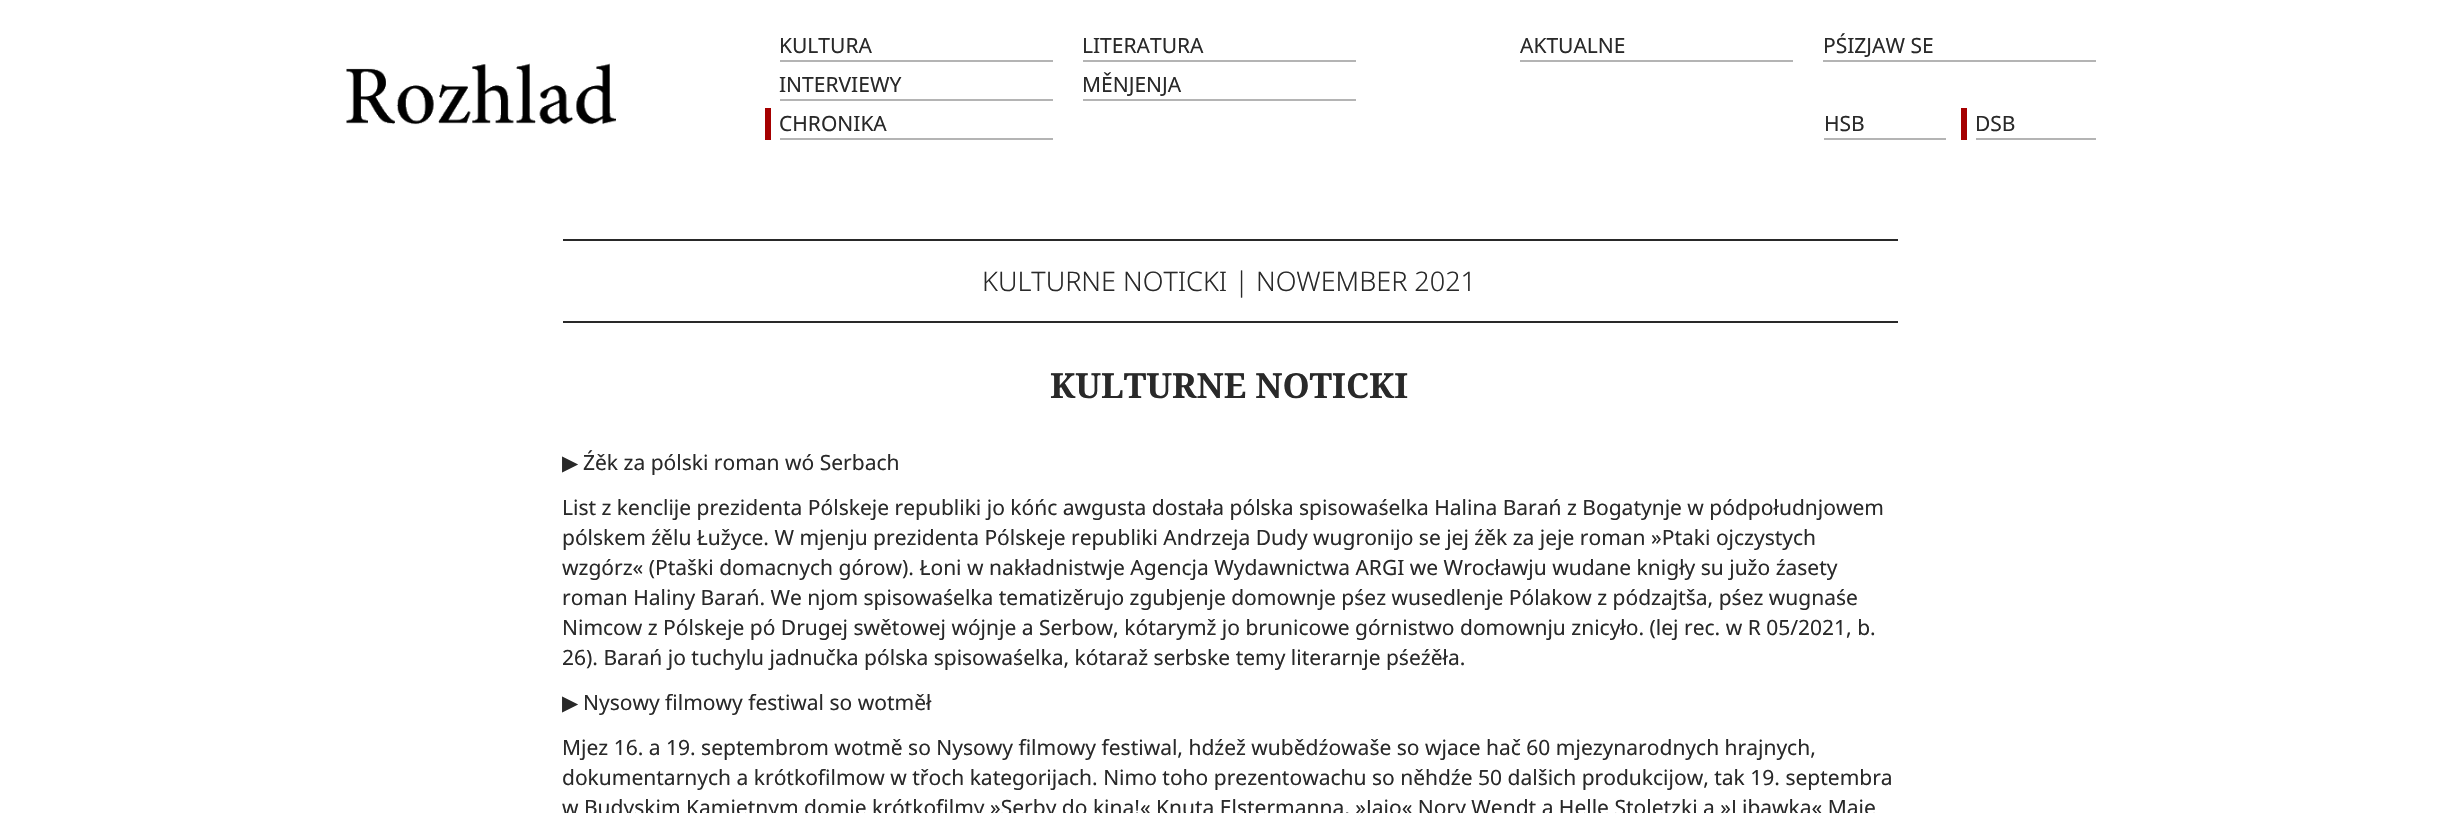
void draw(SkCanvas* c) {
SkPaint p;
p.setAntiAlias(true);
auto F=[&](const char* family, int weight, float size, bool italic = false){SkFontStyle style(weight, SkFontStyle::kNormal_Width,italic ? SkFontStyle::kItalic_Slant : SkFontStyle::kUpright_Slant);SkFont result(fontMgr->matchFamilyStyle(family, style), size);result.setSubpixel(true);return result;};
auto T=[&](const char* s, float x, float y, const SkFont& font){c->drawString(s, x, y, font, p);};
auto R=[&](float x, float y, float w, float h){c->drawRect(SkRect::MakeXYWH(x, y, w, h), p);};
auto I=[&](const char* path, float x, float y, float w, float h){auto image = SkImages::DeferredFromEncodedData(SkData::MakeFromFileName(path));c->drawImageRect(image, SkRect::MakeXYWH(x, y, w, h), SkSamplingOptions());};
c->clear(0xffffffff);
I("1.png",346,63,270,62);
p.setColor(0xffb4b4b4);
R(780,60,273,2);
auto f1 = F("Noto Sans",400,21);
p.setColor(0xff292929);
T("KULTURA",779,53,f1);
p.setColor(0xffb4b4b4);
R(1083,60,273,2);
p.setColor(0xff292929);
T("LITERATURA",1082,53,f1);
p.setColor(0xffb4b4b4);
R(780,99,273,2);
p.setColor(0xff292929);
T("INTERVIEWY",779,92,f1);
p.setColor(0xffb4b4b4);
R(1083,99,273,2);
p.setColor(0xff292929);
T("MĚNJENJA",1082,92,f1);
p.setColor(0xffa50000);
R(765,108,6,32);
p.setColor(0xffb4b4b4);
R(780,138,273,2);
p.setColor(0xff292929);
T("CHRONIKA",779,131,f1);
p.setColor(0xffb4b4b4);
R(1520,60,273,2);
p.setColor(0xff292929);
T("AKTUALNE",1520,53,f1);
p.setColor(0xffb4b4b4);
R(1823,60,273,2);
p.setColor(0xff292929);
T("PŚIZJAW SE",1823,53,f1);
p.setColor(0xffb4b4b4);
R(1824,138,122,2);
p.setColor(0xff292929);
T("HSB",1824,131,f1);
p.setColor(0xffa50000);
R(1961,108,6,32);
p.setColor(0xffb4b4b4);
R(1976,138,120,2);
p.setColor(0xff292929);
T("DSB",1975,131,f1);
R(563,239,1335,2);
R(563,321,1335,2);
auto f2 = F("Noto Sans",300,27);
T("KULTURNE NOTICKI | NOWEMBER 2021",982,291,f2);
auto f3 = F("Noto Serif",700,34.5);
T("KULTURNE NOTICKI",1050,398,f3);
auto f4 = F("DejaVu Sans",400,21);
T("▶",562,470,f4);
T("Źěk za pólski roman wó Serbach",583,470,f1);
T("List z kenclije prezidenta Pólskeje republiki jo kóńc awgusta dostała pólska spisowaśelka Halina Barań z Bogatynje w pódpołudnjowem",562,515,f1);
T("pólskem źělu Łužyce. W mjenju prezidenta Pólskeje republiki Andrzeja Dudy wugronijo se jej źěk za jeje roman »Ptaki ojczystych",562,545,f1);
T("wzgórz« (Ptaški domacnych górow). Łoni w nakładnistwje Agencja Wydawnictwa ARGI we Wrocławju wudane knigły su južo źasety",562,575,f1);
T("roman Haliny Barań. We njom spisowaśelka tematizěrujo zgubjenje domownje pśez wusedlenje Pólakow z pódzajtša, pśez wugnaśe",562,605,f1);
T("Nimcow z Pólskeje pó Drugej swětowej wójnje a Serbow, kótarymž jo brunicowe górnistwo domownju znicyło. (lej rec. w R 05/2021, b.",562,635,f1);
T("26). Barań jo tuchylu jadnučka pólska spisowaśelka, kótaraž serbske temy literarnje pśeźěła.",562,665,f1);
T("▶",562,710,f4);
T("Nysowy filmowy festiwal so wotměł",583,710,f1);
T("Mjez 16. a 19. septembrom wotmě so Nysowy filmowy festiwal, hdźež wubědźowaše so wjace hač 60 mjezynarodnych hrajnych,",562,755,f1);
T("dokumentarnych a krótkofilmow w třoch kategorijach. Nimo toho prezentowachu so něhdźe 50 dalšich produkcijow, tak 19. septembra",562,785,f1);
T("w Budyskim Kamjetnym domje krótkofilmy »Serby do kina!« Knuta Elstermanna, »Jajo« Nory Wendt a Helle Stoletzki a »Libawka« Maje",562,815,f1);
}
